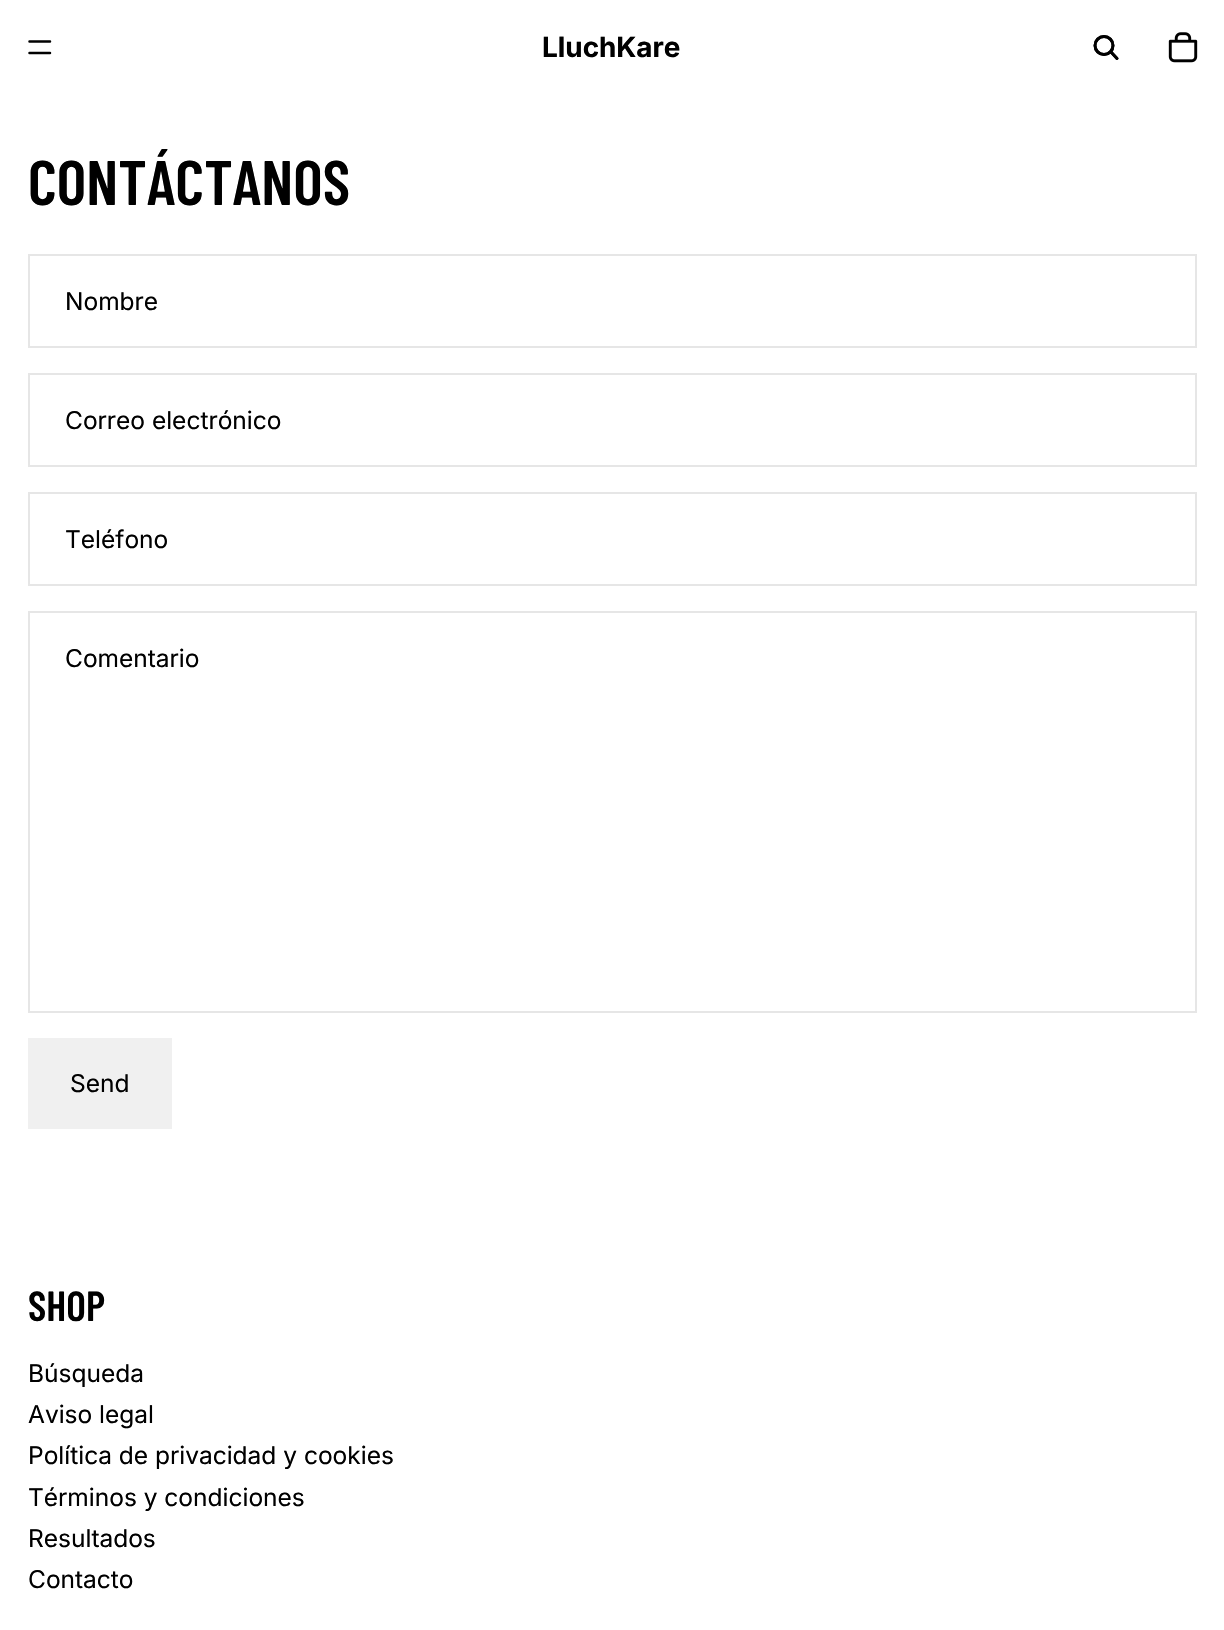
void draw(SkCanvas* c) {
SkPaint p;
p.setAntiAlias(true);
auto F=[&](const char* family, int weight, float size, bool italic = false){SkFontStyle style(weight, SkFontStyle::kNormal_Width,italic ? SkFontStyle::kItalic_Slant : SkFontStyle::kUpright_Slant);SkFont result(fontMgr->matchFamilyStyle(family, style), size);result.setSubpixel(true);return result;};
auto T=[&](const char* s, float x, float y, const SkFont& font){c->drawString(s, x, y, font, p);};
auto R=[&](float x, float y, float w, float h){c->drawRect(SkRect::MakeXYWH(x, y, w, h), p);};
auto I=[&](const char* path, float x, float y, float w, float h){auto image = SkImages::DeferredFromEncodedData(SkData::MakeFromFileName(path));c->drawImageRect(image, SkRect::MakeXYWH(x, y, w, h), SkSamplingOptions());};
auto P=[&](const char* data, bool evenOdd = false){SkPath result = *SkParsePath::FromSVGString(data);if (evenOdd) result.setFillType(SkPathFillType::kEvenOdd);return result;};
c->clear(0xffffffff);
p.setStroke(true);
p.setStrokeWidth(2.5);
p.setStrokeCap(SkPaint::kRound_Cap);
p.setColor(0xff000000);
c->drawPath(P("M29.5 41.5h20.5m-20.5 11.5h20.5"),p);
auto f1 = F("Inter",700,28);
p.setStroke(false);
T("LluchKare",542,57,f1);
p.setStroke(true);
p.setStrokeWidth(2.9);
p.setStrokeCap(SkPaint::kButt_Cap);
c->drawCircle(1104,45.5,9,p);
p.setStrokeCap(SkPaint::kRound_Cap);
p.setStrokeJoin(SkPaint::kRound_Join);
c->drawPath(P("M1111 52l6 6.5"),p);
p.setStrokeCap(SkPaint::kButt_Cap);
p.setStrokeJoin(SkPaint::kMiter_Join);
c->drawCircle(1104,45.5,9,p);
p.setStrokeCap(SkPaint::kRound_Cap);
p.setStrokeJoin(SkPaint::kRound_Join);
c->drawPath(P("M1111 52l6 6.5"),p);
I("1.png",1168,32,30,31);
auto f2 = F("Barlow Condensed",600,63);
p.setStroke(false);
T("CONTÁCTANOS",28,205,f2);
p.setStroke(true);
p.setStrokeWidth(2);
p.setStrokeCap(SkPaint::kButt_Cap);
p.setStrokeJoin(SkPaint::kMiter_Join);
p.setColor(0xffe6e6e6);
c->drawRect(SkRect::MakeXYWH(29,255,1167,92),p);
auto f3 = F("Inter",400,24.5);
p.setStroke(false);
p.setColor(0xff000000);
T("Nombre",65,310,f3);
p.setStroke(true);
p.setColor(0xffe6e6e6);
c->drawRect(SkRect::MakeXYWH(29,374,1167,92),p);
p.setStroke(false);
p.setColor(0xff000000);
T("Correo electrónico",65,429,f3);
p.setStroke(true);
p.setColor(0xffe6e6e6);
c->drawRect(SkRect::MakeXYWH(29,493,1167,92),p);
p.setStroke(false);
p.setColor(0xff000000);
T("Teléfono",65,548,f3);
p.setStroke(true);
p.setColor(0xffe6e6e6);
c->drawRect(SkRect::MakeXYWH(29,612,1167,400),p);
p.setStroke(false);
p.setColor(0xff000000);
T("Comentario",65,667,f3);
p.setColor(0xfff0f0f0);
R(28,1038,144,91);
p.setColor(0xff000000);
T("Send",70,1092,f3);
auto f4 = F("Barlow Condensed",600,42);
T("SHOP",28,1321,f4);
T("Búsqueda",28,1382,f3);
T("Aviso legal",28,1423,f3);
T("Política de privacidad y cookies",28,1464,f3);
T("Términos y condiciones",28,1506,f3);
T("Resultados",28,1547,f3);
T("Contacto",28,1588,f3);
}
